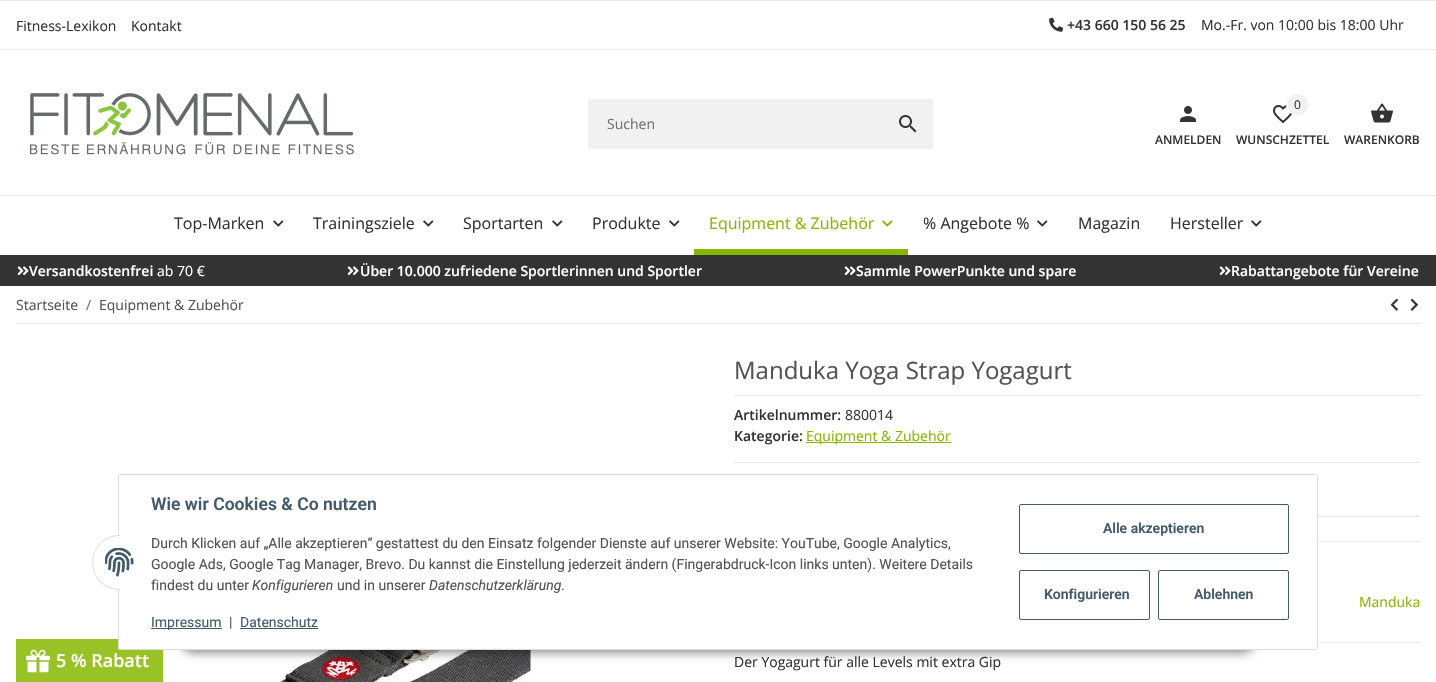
void draw(SkCanvas* c) {
SkPaint p;
p.setAntiAlias(true);
auto F=[&](const char* family, int weight, float size, bool italic = false){SkFontStyle style(weight, SkFontStyle::kNormal_Width,italic ? SkFontStyle::kItalic_Slant : SkFontStyle::kUpright_Slant);SkFont result(fontMgr->matchFamilyStyle(family, style), size);result.setSubpixel(true);return result;};
auto T=[&](const char* s, float x, float y, const SkFont& font){c->drawString(s, x, y, font, p);};
auto R=[&](float x, float y, float w, float h){c->drawRect(SkRect::MakeXYWH(x, y, w, h), p);};
auto I=[&](const char* path, float x, float y, float w, float h){auto image = SkImages::DeferredFromEncodedData(SkData::MakeFromFileName(path));c->drawImageRect(image, SkRect::MakeXYWH(x, y, w, h), SkSamplingOptions());};
c->clear(0xffffffff);
p.setColor(0xffe9e9e9);
R(0,0,1436,1);
R(0,49,1436,1);
auto f1 = F("Open Sans",400,14);
p.setColor(0xff333333);
T("Fitness-Lexikon",16,31,f1);
T("Kontakt",131,31,f1);
I("1.png",1049,17,14,15);
auto f2 = F("Open Sans",600,14);
T("+43 660 150 56 25",1067,30,f2);
T("Mo.-Fr. von 10:00 bis 18:00 Uhr",1201,30,f1);
I("2.png",30,93,324,62);
p.setColor(0xfff1f1f1);
R(588,99,345,50);
p.setColor(0xff707070);
T("Suchen",607,129,f1);
I("3.png",899,115,18,18);
I("4.png",1180,106,16,16);
auto f3 = F("Open Sans",600,12);
p.setColor(0xff333333);
T("ANMELDEN",1155,144,f3);
I("5.png",1273,105,19,19);
p.setColor(0xfff1f1f1);
c->drawCircle(1297.5,104.5,11,p);
p.setStroke(true);
p.setStrokeWidth(1);
p.setColor(0xffffffff);
c->drawCircle(1297.5,104.5,11,p);
auto f4 = F("Open Sans",400,12);
p.setStroke(false);
p.setColor(0xff333333);
T("0",1294,109,f4);
T("WUNSCHZETTEL",1236,144,f3);
I("6.png",1371,103,22,20);
T("WARENKORB",1344,144,f3);
p.setColor(0xffe9e9e9);
R(0,195,1436,1);
auto f5 = F("Open Sans",400,16);
p.setColor(0xff333333);
T("Top-Marken",174,229,f5);
I("7.png",273,220,11,7);
T("Trainingsziele",313,229,f5);
I("7.png",423,220,11,7);
T("Sportarten",463,229,f5);
I("7.png",552,220,11,7);
T("Produkte",592,229,f5);
I("7.png",669,220,11,7);
p.setColor(0xff87b700);
T("Equipment & Zubehör",709,229,f5);
I("8.png",882,220,11,7);
R(694,249,214,6);
p.setColor(0xff333333);
T("% Angebote %",923,229,f5);
I("7.png",1037,220,11,7);
T("Magazin",1078,229,f5);
T("Hersteller",1170,229,f5);
I("7.png",1251,220,11,7);
R(0,255,1436,31);
I("9.png",17,266,12,10);
p.setColor(0xffffffff);
T("Versandkostenfrei",29,276,f2);
T("ab 70 €",157,276,f1);
I("9.png",347,266,12,10);
T("Über 10.000 zufriedene Sportlerinnen und Sportler",360,276,f2);
I("9.png",844,266,12,10);
T("Sammle PowerPunkte und spare",856,276,f2);
I("9.png",1219,266,12,10);
T("Rabattangebote für Vereine",1231,276,f2);
p.setColor(0xff525252);
T("Startseite",16,310,f1);
p.setColor(0xff707070);
T("/",86,310,f1);
p.setColor(0xff525252);
T("Equipment & Zubehör",99,310,f1);
I("10.png",1390,298,8,13);
I("11.png",1410,298,8,13);
p.setColor(0xffe9e9e9);
R(16,323,1404,1);
I("12.png",280,650,251,32);
R(734,395,686,1);
auto f6 = F("Open Sans",400,24);
p.setColor(0xff525252);
T("Manduka Yoga Strap Yogagurt",734,379,f6);
p.setColor(0xffe9e9e9);
R(1318,541,102,1);
p.setColor(0xff333333);
T("Artikelnummer:",734,420,f2);
T("880014",845,420,f1);
T("Kategorie:",734,441,f2);
p.setColor(0xff87b700);
R(806,442,145,1);
T("Equipment & Zubehör",806,441,f1);
p.setColor(0xffe6e6e6);
R(734,462,686,1);
R(1318,516,102,1);
p.setColor(0xffe9e9e9);
R(1318,642,102,1);
p.setColor(0xff87b700);
T("Manduka",1359,607,f1);
p.setColor(0xff333333);
T("Der Yogagurt für alle Levels mit extra Gip",734,667,f1);
p.setColor(0x73000000);
p.setMaskFilter(SkMaskFilter::MakeBlur(kNormal_SkBlurStyle, 5));
c->drawRoundRect(SkRect::MakeXYWH(179,621,1078,32),16,16,p);
p.setMaskFilter(nullptr);
p.setColor(0xff99c226);
R(16,639,147,43);
p.setColor(0xffffffff);
c->drawRoundRect(SkRect::MakeXYWH(118.5,474.5,1199,175),1.5,1.5,p);
p.setStroke(true);
p.setColor(0xffdddddd);
c->drawRoundRect(SkRect::MakeXYWH(118.5,474.5,1199,175),1.5,1.5,p);
p.setStroke(false);
p.setColor(0xffffffff);
c->drawCircle(119.5,562.5,27,p);
p.setStroke(true);
p.setColor(0xffdddddd);
c->drawCircle(119.5,562.5,27,p);
p.setStroke(false);
p.setColor(0xffffffff);
R(120,535,27,55);
I("13.png",105,548,29,29);
auto f7 = F("Roboto",600,17.6);
p.setColor(0xff435a6b);
T("Wie wir Cookies & Co nutzen",151,510,f7);
auto f8 = F("Roboto",400,14);
p.setColor(0xff525252);
T("Durch Klicken auf „Alle akzeptieren“ gestattest du den Einsatz folgender Dienste auf unserer Website: YouTube, Google Analytics,",151,548,f8);
T("Google Ads, Google Tag Manager, Brevo. Du kannst die Einstellung jederzeit ändern (Fingerabdruck-Icon links unten). Weitere Details",151,569,f8);
T("findest du unter",151,590,f8);
auto f9 = F("Roboto",400,14,true);
T("Konfigurieren",252,590,f9);
T("und in unserer",337,590,f8);
T("Datenschutzerklärung",429,590,f9);
T(".",561,590,f8);
p.setColor(0xff435a6b);
R(151,628,71,1);
T("Impressum",151,627,f8);
p.setColor(0xff525252);
T("|",229,627,f8);
p.setColor(0xff435a6b);
T("Datenschutz",240,627,f8);
R(240,628,78,1);
p.setStroke(true);
c->drawRoundRect(SkRect::MakeXYWH(1019.5,504.5,269,49),1.5,1.5,p);
auto f10 = F("Roboto",600,14);
p.setStroke(false);
T("Alle akzeptieren",1103,533,f10);
p.setStroke(true);
c->drawRoundRect(SkRect::MakeXYWH(1019.5,570.5,130,49),1.5,1.5,p);
p.setStroke(false);
T("Konfigurieren",1044,599,f10);
p.setStroke(true);
c->drawRoundRect(SkRect::MakeXYWH(1158.5,570.5,130,49),1.5,1.5,p);
p.setStroke(false);
T("Ablehnen",1194,599,f10);
I("14.png",26,649,24,24);
auto f11 = F("Open Sans",600,18);
p.setColor(0xffffffff);
T("5 % Rabatt",56,667,f11);
}
